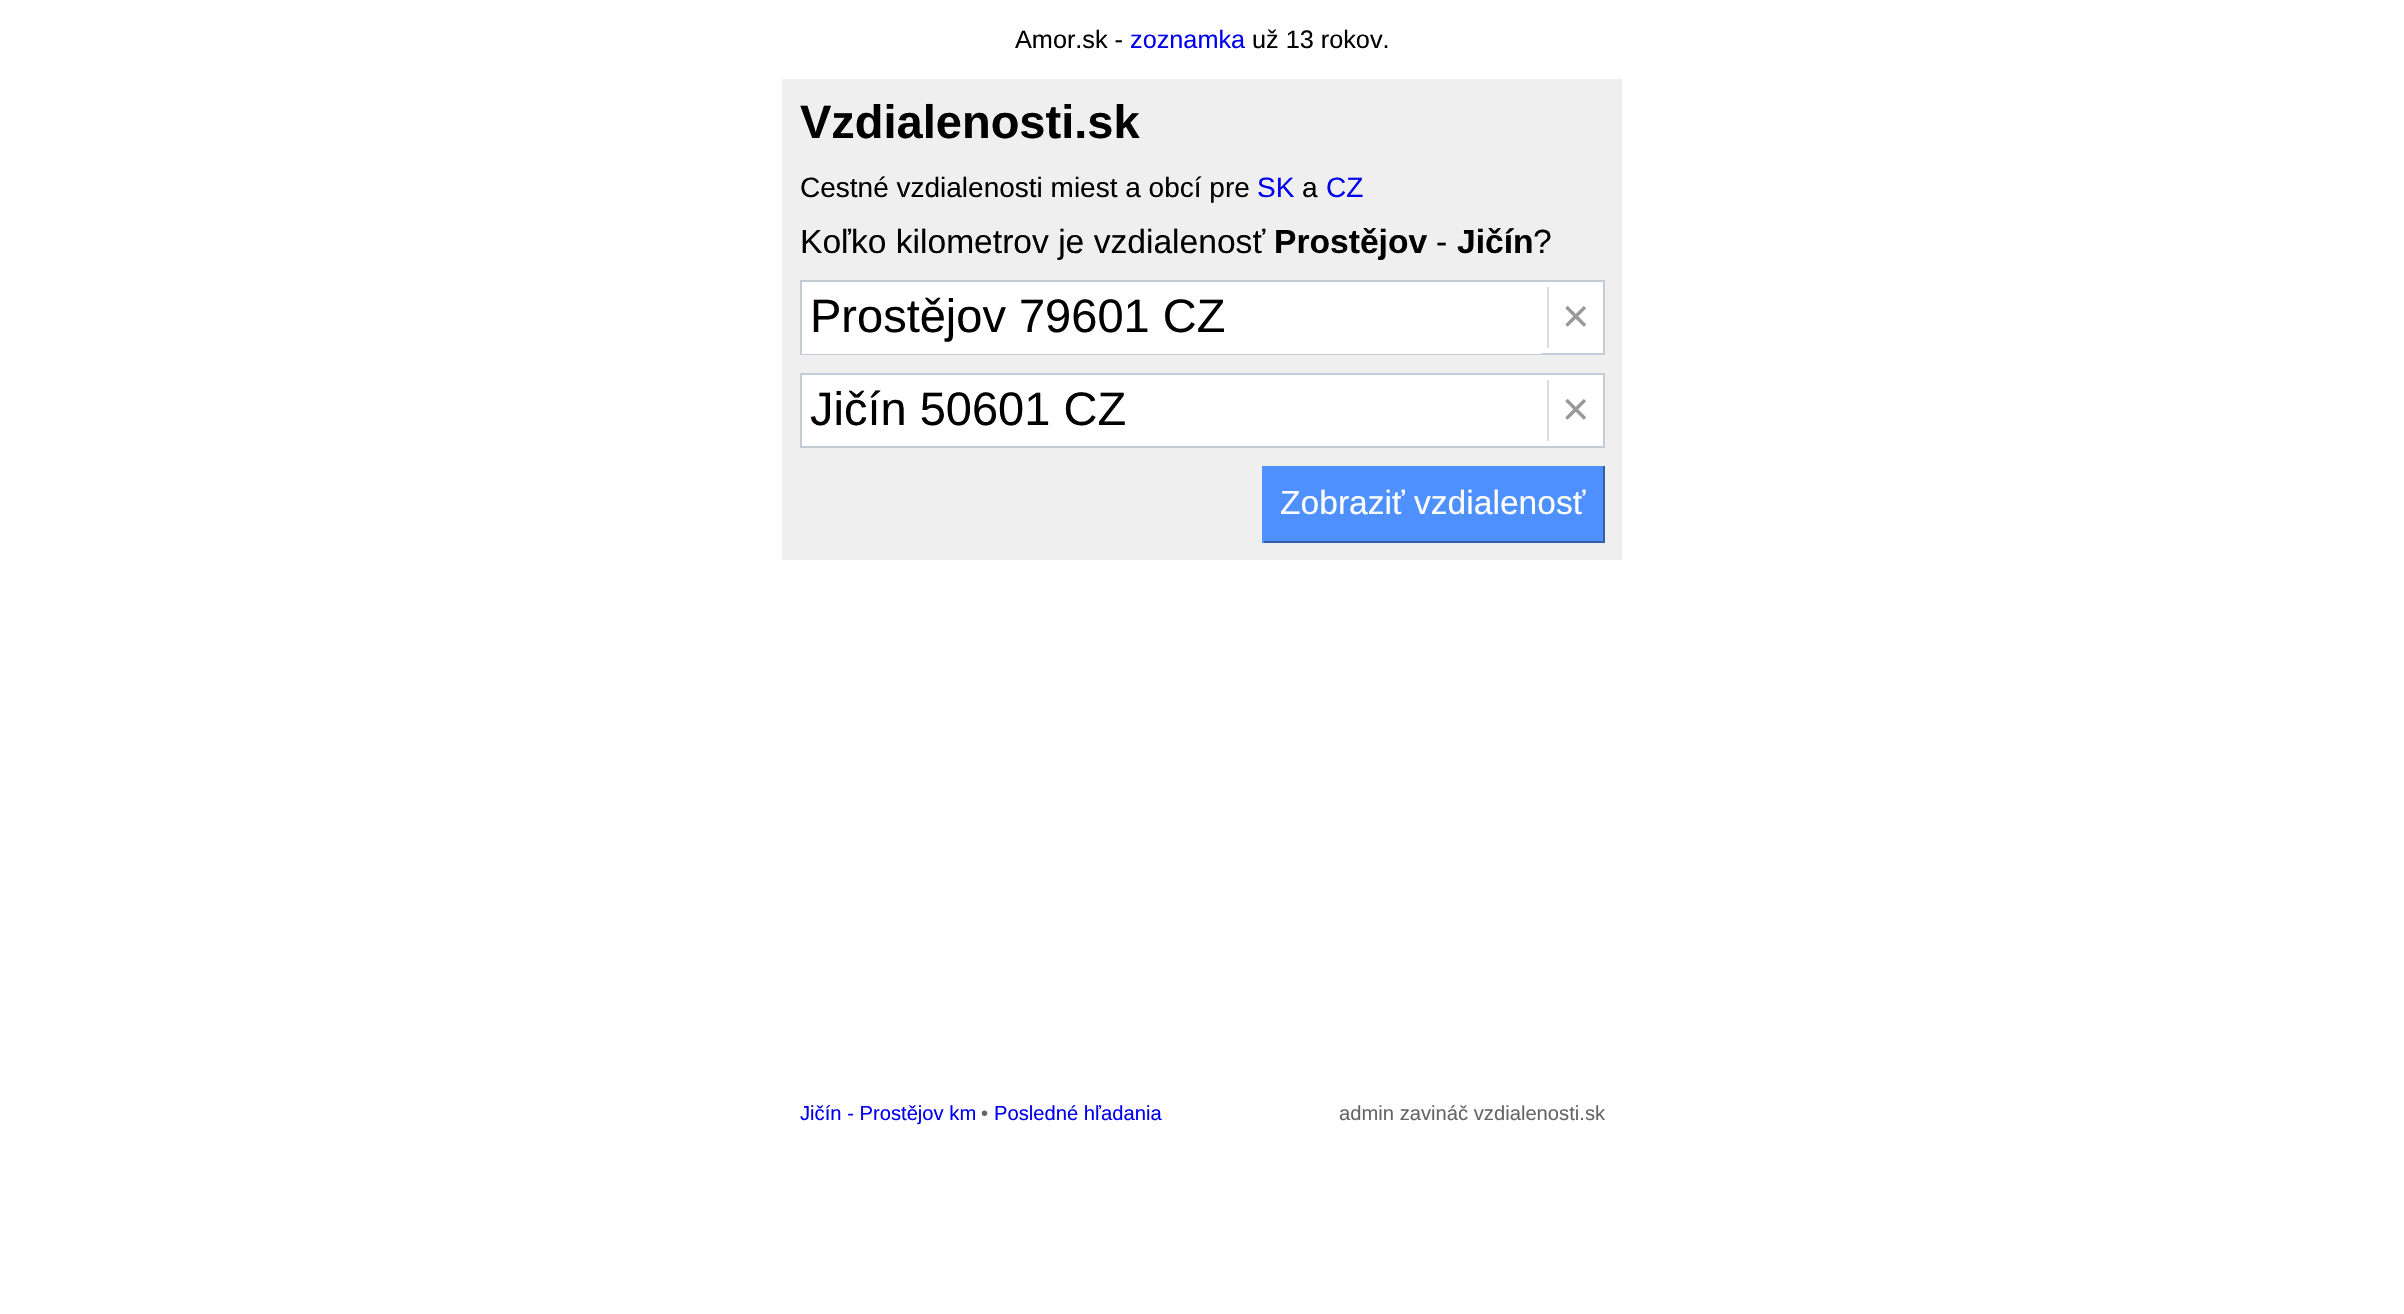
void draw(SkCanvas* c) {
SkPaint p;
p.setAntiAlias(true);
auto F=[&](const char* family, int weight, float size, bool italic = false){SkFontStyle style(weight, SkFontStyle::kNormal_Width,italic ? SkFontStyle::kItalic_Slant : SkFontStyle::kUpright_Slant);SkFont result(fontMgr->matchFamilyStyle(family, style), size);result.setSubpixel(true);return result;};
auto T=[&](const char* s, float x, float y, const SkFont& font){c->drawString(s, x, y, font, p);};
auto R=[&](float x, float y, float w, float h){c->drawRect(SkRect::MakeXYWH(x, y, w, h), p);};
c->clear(0xffffffff);
auto f1 = F("Liberation Sans",400,25.25);
p.setColor(0xff000000);
T("Amor.sk -",1015,48,f1);
p.setColor(0xff0000ee);
T("zoznamka",1130,48,f1);
p.setColor(0xff000000);
T("už 13 rokov.",1252,48,f1);
p.setColor(0xffefefef);
R(782,79,840,481);
auto f2 = F("Liberation Sans",700,47);
p.setColor(0xff000000);
T("Vzdialenosti.sk",800,138,f2);
auto f3 = F("Liberation Sans",400,28);
T("Cestné vzdialenosti miest a obcí pre",800,197,f3);
p.setColor(0xff0000ee);
T("SK",1257,197,f3);
p.setColor(0xff000000);
T("a",1302,197,f3);
p.setColor(0xff0000ee);
T("CZ",1326,197,f3);
auto f4 = F("Liberation Sans",400,33.6);
p.setColor(0xff000000);
T("Koľko kilometrov je vzdialenosť",800,253,f4);
auto f5 = F("Liberation Sans",700,33.6);
T("Prostějov",1274,253,f5);
T("-",1436,253,f4);
T("Jičín",1457,253,f5);
T("?",1533,253,f4);
p.setColor(0xffffffff);
R(1542,282,61,71);
p.setStroke(true);
p.setStrokeWidth(2);
p.setColor(0xffc3cbd4);
c->drawRect(SkRect::MakeXYWH(801,281,803,73),p);
p.setStroke(false);
p.setColor(0xffffffff);
R(802,282,740,72);
auto f6 = F("Liberation Sans",400,47);
p.setColor(0xff000000);
T("Prostějov 79601 CZ",810,332,f6);
p.setColor(0xffdddddd);
R(1547,287,2,61);
p.setColor(0xff999999);
T("×",1562,332,f6);
p.setColor(0xffffffff);
c->drawRect(SkRect::MakeXYWH(801,374,803,73),p);
p.setStroke(true);
p.setColor(0xffc3cbd4);
c->drawRect(SkRect::MakeXYWH(801,374,803,73),p);
p.setStroke(false);
p.setColor(0xff000000);
T("Jičín 50601 CZ",810,425,f6);
p.setColor(0xffdddddd);
R(1547,380,2,61);
p.setColor(0xff999999);
T("×",1562,425,f6);
p.setColor(0xff4d90fe);
R(1264,466,339,75);
p.setColor(0xff3360a9);
R(1603,466,2,77);
R(1262,541,343,2);
p.setColor(0xff4d90fe);
R(1262,466,2,77);
p.setColor(0xffffffff);
T("Zobraziť vzdialenosť",1280,514,f4);
auto f7 = F("Liberation Sans",400,20.2);
p.setColor(0xff0000ee);
T("Jičín - Prostějov km",800,1120,f7);
p.setColor(0xff666666);
T("•",981,1120,f7);
p.setColor(0xff0000ee);
T("Posledné hľadania",994,1120,f7);
p.setColor(0xff666666);
T("admin zavináč vzdialenosti.sk",1339,1120,f7);
}
